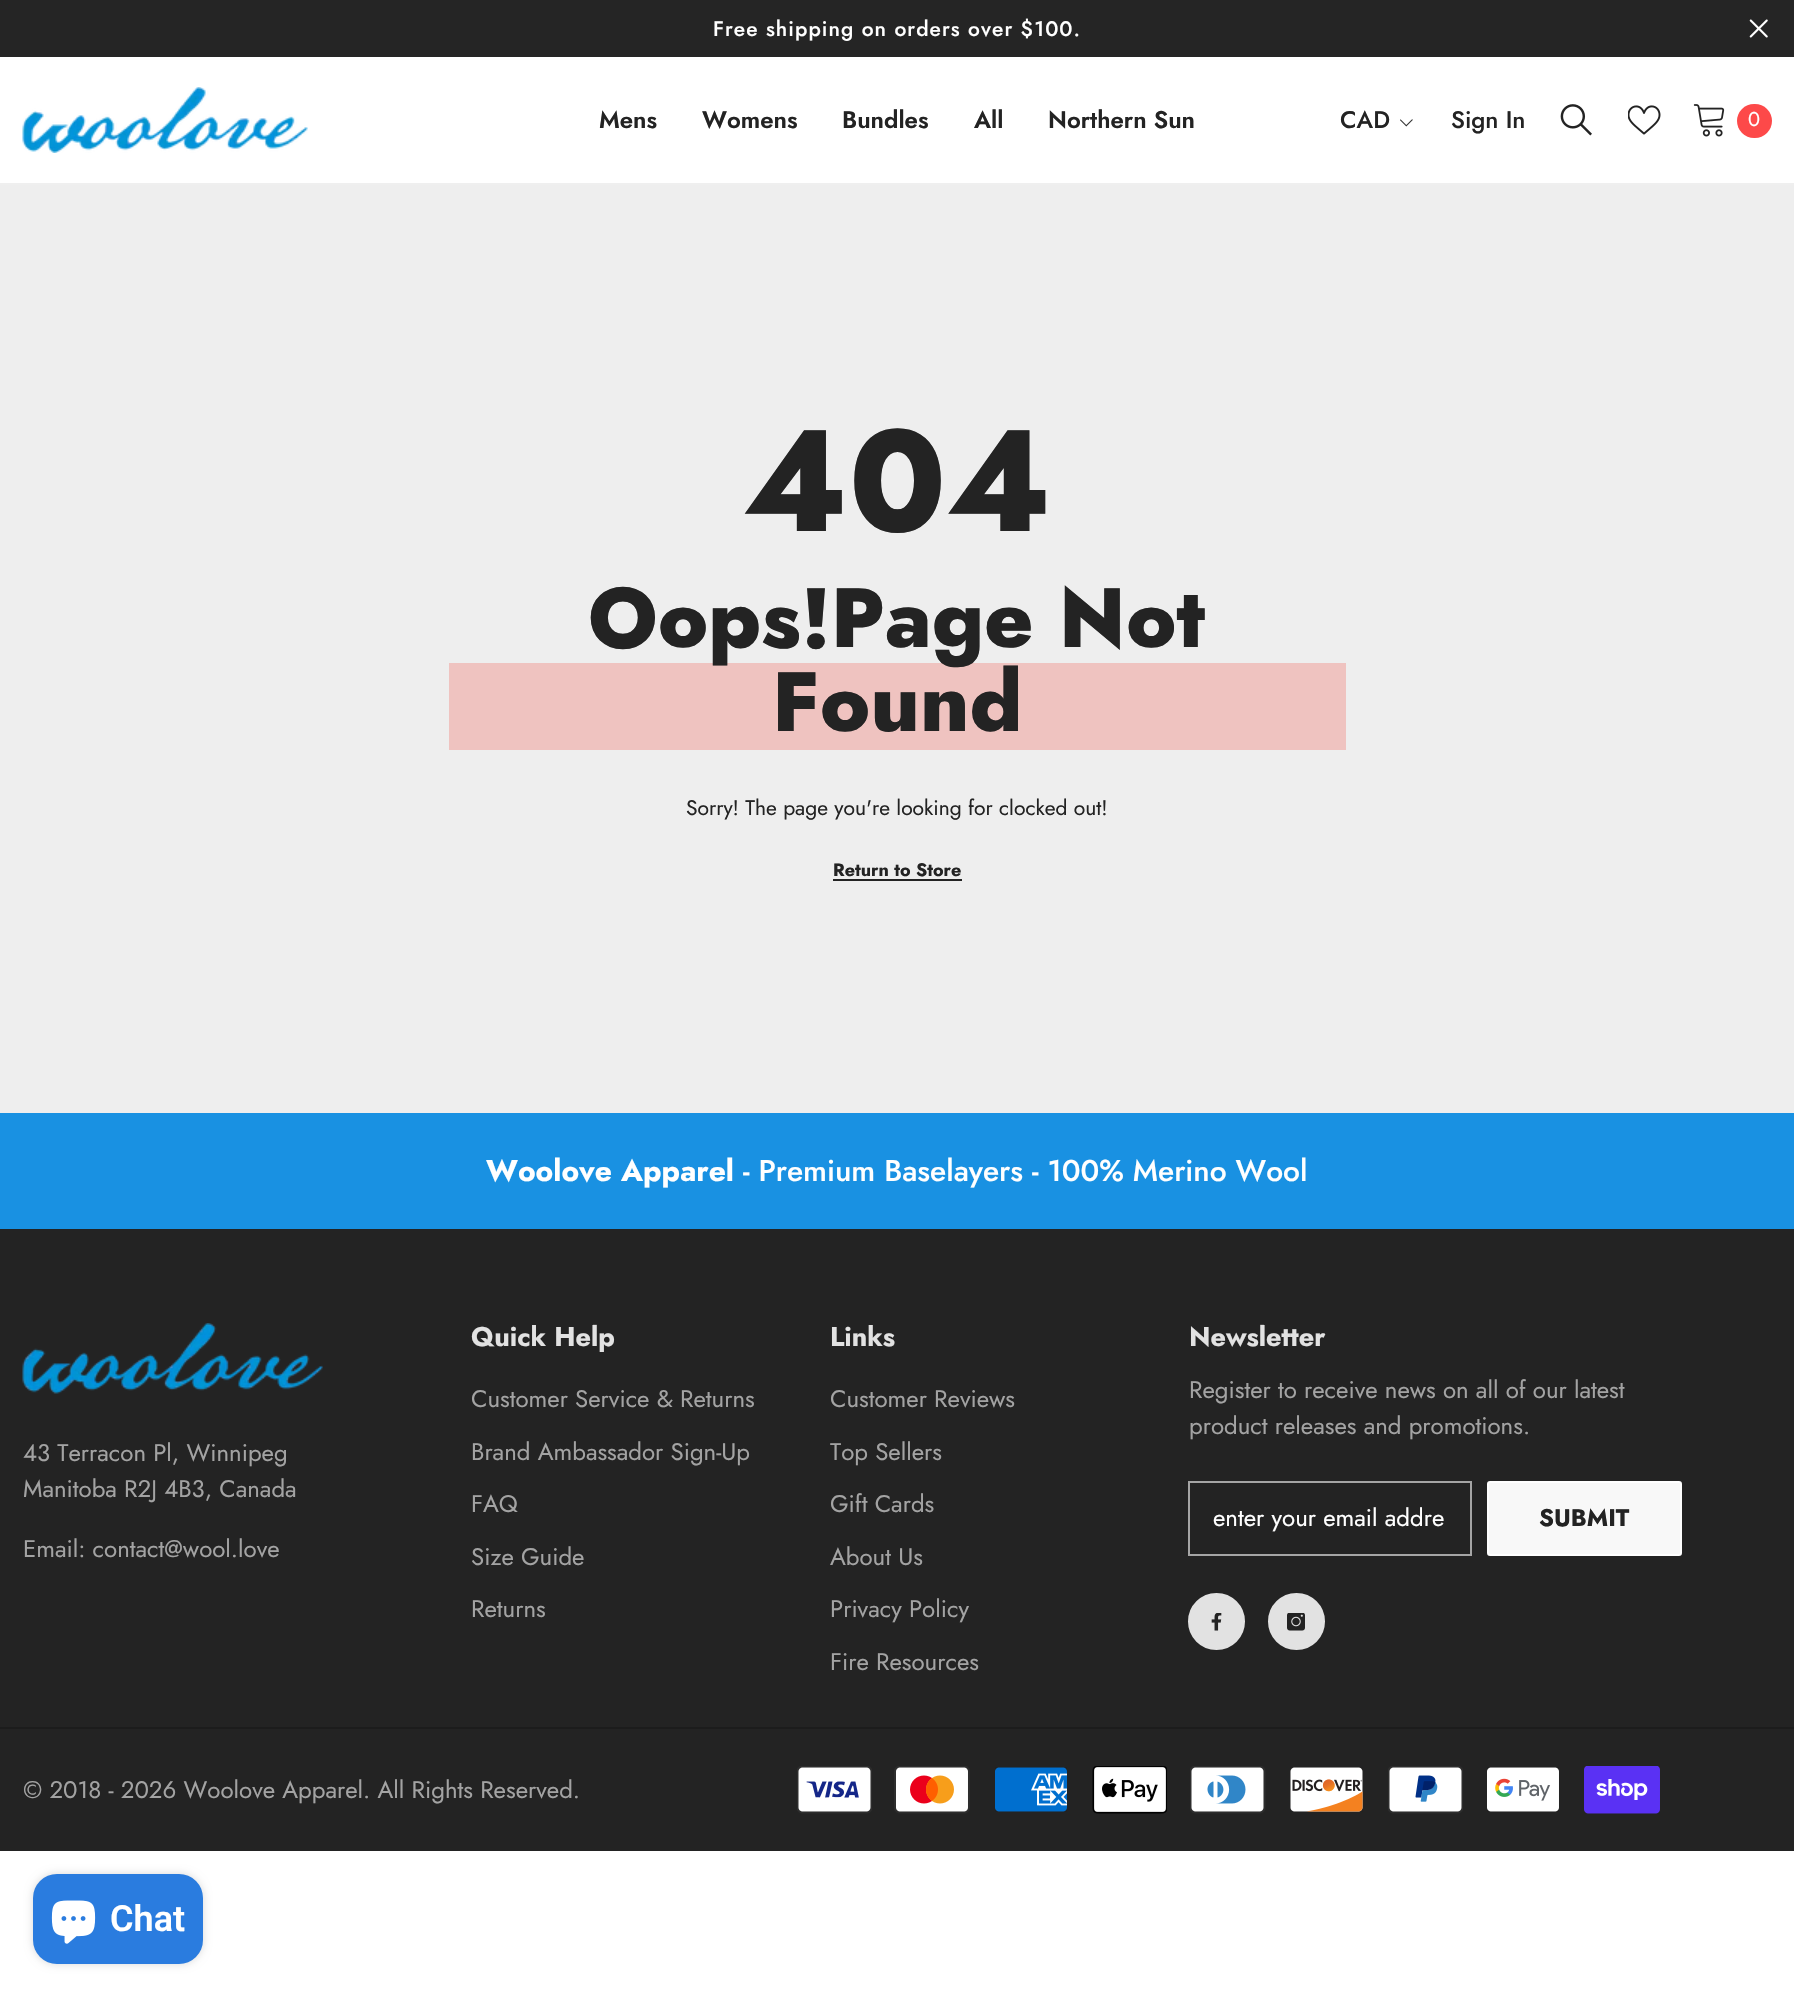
void draw(SkCanvas* c) {
SkPaint p;
p.setAntiAlias(true);
auto F=[&](const char* family, int weight, float size, bool italic = false){SkFontStyle style(weight, SkFontStyle::kNormal_Width,italic ? SkFontStyle::kItalic_Slant : SkFontStyle::kUpright_Slant);SkFont result(fontMgr->matchFamilyStyle(family, style), size);result.setSubpixel(true);return result;};
auto T=[&](const char* s, float x, float y, const SkFont& font){c->drawString(s, x, y, font, p);};
auto L=[&](const char* s, float x, float y, const SkFont& font, const SkPaint& ink, float letter, float word){std::vector<SkGlyphID> glyphs(font.countText(s, strlen(s), SkTextEncoding::kUTF8));std::vector<float> xs(glyphs.size());font.textToGlyphs(s, strlen(s), SkTextEncoding::kUTF8, glyphs);font.getXPos(glyphs, xs, x);float extra = 0;for (size_t i = 0; i < glyphs.size(); i++) {xs[i] += extra;extra += letter + word * (glyphs[i] == font.unicharToGlyph(' '));}c->drawTextBlob(SkTextBlob::MakeFromPosHGlyphs(glyphs, xs, y, font), 0, 0, ink);};
auto R=[&](float x, float y, float w, float h){c->drawRect(SkRect::MakeXYWH(x, y, w, h), p);};
auto Q=[&](float x, float y, float w, float h, float radius){c->drawRoundRect(SkRect::MakeXYWH(x, y, w, h), radius, radius, p);};
auto I=[&](const char* path, float x, float y, float w, float h){auto image = SkImages::DeferredFromEncodedData(SkData::MakeFromFileName(path));c->drawImageRect(image, SkRect::MakeXYWH(x, y, w, h), SkSamplingOptions());};
c->clear(0xffffffff);
p.setColor(0xff252525);
R(0,0,1794,57);
auto f1 = F("Jost",500,21);
p.setColor(0xffffffff);
L("Free shipping on orders over $100.",713,36,f1,p,1.05,0);
I("1.png",1749,19,19,19);
p.setColor(0xffefefef);
R(0,183,1794,2);
I("2.png",22,87,286,66);
auto f2 = F("Jost",600,24);
p.setColor(0xff232323);
T("Mens",599,128,f2);
T("Womens",702,128,f2);
T("Bundles",842,128,f2);
T("All",974,128,f2);
T("Northern Sun",1048,128,f2);
auto f3 = F("Jost",500,24);
T("CAD",1340,128,f3);
I("3.png",1400,119,13,8);
T("Sign In",1451,128,f3);
I("4.png",1560,104,32,32);
I("5.png",1628,105,33,30);
I("6.png",1693,104,32,33);
p.setColor(0xfffd4949);
Q(1737,104,35,34,17);
auto f4 = F("Jost",400,20);
p.setColor(0xffffffff);
T("0",1748,126,f4);
p.setColor(0xffeeeeee);
R(0,185,1794,928);
auto f5 = F("Jost",800,144);
p.setColor(0xff232323);
T("404",743,531,f5);
p.setColor(0xffefc3c0);
R(449,663,897,87);
auto f6 = F("Jost",800,84);
p.setColor(0xff232323);
T("Oops!Page Not",588,647,f6);
T("Found",772,731,f6);
auto f7 = F("Jost",400,21);
T("Sorry! The page you're looking for clocked out!",686,815,f7);
auto f8 = F("Jost",700,18);
T("Return to Store",833,876,f8);
R(833,879,129,2);
p.setColor(0xff1991e2);
R(0,1113,1794,116);
auto f9 = F("Jost",700,30);
p.setColor(0xffffffff);
T("Woolove Apparel",486,1181,f9);
auto f10 = F("Jost",500,30);
T("- Premium Baselayers - 100% Merino Wool",743,1181,f10);
p.setColor(0xff232323);
R(0,1229,1794,498);
I("7.png",22,1323,301,71);
auto f11 = F("Jost",400,24);
p.setColor(0xffa3a3a3);
T("43 Terracon Pl, Winnipeg",23,1461,f11);
T("Manitoba R2J 4B3, Canada",23,1497,f11);
T("Email: contact@wool.love",23,1557,f11);
auto f12 = F("Jost",700,27);
p.setColor(0xffe2e2e2);
T("Quick Help",471,1346,f12);
p.setColor(0xffa3a3a3);
T("Customer Service & Returns",471,1407,f11);
T("Brand Ambassador Sign-Up",471,1460,f11);
T("FAQ",471,1512,f11);
T("Size Guide",471,1565,f11);
T("Returns",471,1617,f11);
p.setColor(0xffe2e2e2);
T("Links",830,1346,f12);
p.setColor(0xffa3a3a3);
T("Customer Reviews",830,1407,f11);
T("Top Sellers",830,1460,f11);
T("Gift Cards",830,1512,f11);
T("About Us",830,1565,f11);
T("Privacy Policy",830,1617,f11);
T("Fire Resources",830,1670,f11);
p.setColor(0xffe2e2e2);
T("Newsletter",1189,1346,f12);
p.setColor(0xffa3a3a3);
T("Register to receive news on all of our latest",1189,1398,f11);
T("product releases and promotions.",1189,1434,f11);
p.setStroke(true);
p.setStrokeWidth(2);
p.setColor(0xffa5a5a5);
c->drawRect(SkRect::MakeXYWH(1189,1482,282,73),p);
p.setStroke(false);
p.setColor(0xffffffff);
T("enter your email addre",1213,1526,f11);
p.setColor(0xfff8f8f8);
c->drawRoundRect(SkRect::MakeXYWH(1488,1482,193,73),2,2,p);
p.setStroke(true);
p.setColor(0xffffffff);
c->drawRoundRect(SkRect::MakeXYWH(1488,1482,193,73),2,2,p);
auto f13 = F("Jost",700,24);
p.setStroke(false);
p.setColor(0xff232323);
T("SUBMIT",1539,1526,f13);
p.setColor(0xffe2e2e2);
c->drawCircle(1216.5,1621.5,27.5,p);
p.setStroke(true);
c->drawCircle(1216.5,1621.5,27.5,p);
I("8.png",1211,1613,11,18);
p.setStroke(false);
c->drawCircle(1296.5,1621.5,27.5,p);
p.setStroke(true);
c->drawCircle(1296.5,1621.5,27.5,p);
I("9.png",1287,1613,18,18);
p.setStroke(false);
p.setColor(0xff232323);
R(0,1729,1794,122);
p.setColor(0xff1c1c1c);
R(0,1727,1794,2);
p.setColor(0xffa3a3a3);
T("© 2018 - 2026 Woolove Apparel. All Rights Reserved.",23,1798,f11);
I("10.png",797,1766,75,48);
I("11.png",894,1766,76,48);
I("12.png",995,1767,72,45);
I("13.png",1092,1766,75,48);
I("14.png",1190,1766,76,48);
I("15.png",1290,1767,73,45);
I("16.png",1388,1766,75,48);
I("17.png",1487,1767,72,45);
I("18.png",1584,1766,76,48);
p.setColor(0x26000000);
p.setMaskFilter(SkMaskFilter::MakeBlur(kNormal_SkBlurStyle, 4));
c->drawRoundRect(SkRect::MakeXYWH(33,1874,170,90),24,24,p);
p.setMaskFilter(nullptr);
p.setColor(0xff2a7cdf);
Q(33,1874,170,90,24);
I("19.png",51,1900,45,44);
auto f14 = F("Roboto",600,36);
p.setColor(0xffffffff);
T("Chat",110,1931,f14);
}
